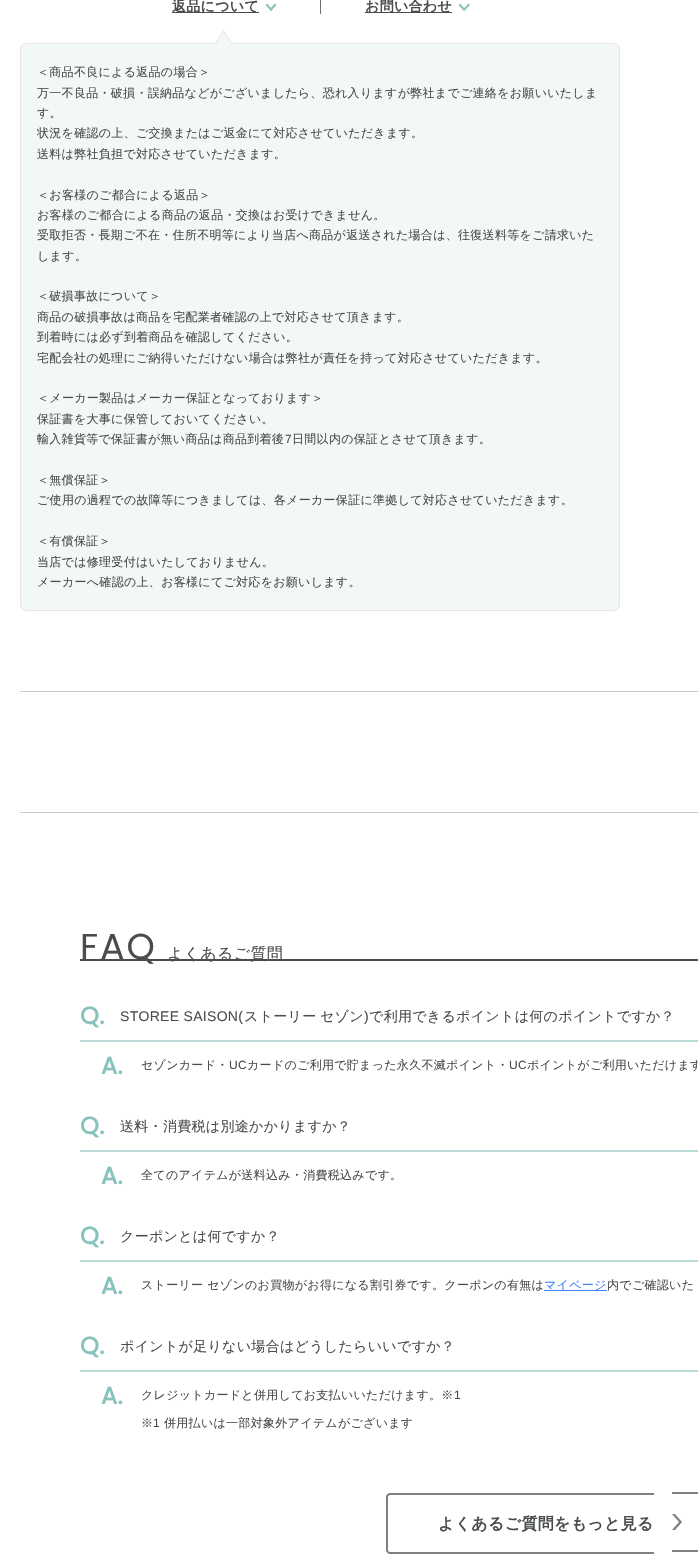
void draw(SkCanvas* c) {
SkPaint p;
p.setAntiAlias(true);
auto F=[&](const char* family, int weight, float size, bool italic = false){SkFontStyle style(weight, SkFontStyle::kNormal_Width,italic ? SkFontStyle::kItalic_Slant : SkFontStyle::kUpright_Slant);SkFont result(fontMgr->matchFamilyStyle(family, style), size);result.setSubpixel(true);return result;};
auto L=[&](const char* s, float x, float y, const SkFont& font, const SkPaint& ink, float letter, float word){std::vector<SkGlyphID> glyphs(font.countText(s, strlen(s), SkTextEncoding::kUTF8));std::vector<float> xs(glyphs.size());font.textToGlyphs(s, strlen(s), SkTextEncoding::kUTF8, glyphs);font.getXPos(glyphs, xs, x);float extra = 0;for (size_t i = 0; i < glyphs.size(); i++) {xs[i] += extra;extra += letter + word * (glyphs[i] == font.unicharToGlyph(' '));}c->drawTextBlob(SkTextBlob::MakeFromPosHGlyphs(glyphs, xs, y, font), 0, 0, ink);};
auto R=[&](float x, float y, float w, float h){c->drawRect(SkRect::MakeXYWH(x, y, w, h), p);};
auto I=[&](const char* path, float x, float y, float w, float h){auto image = SkImages::DeferredFromEncodedData(SkData::MakeFromFileName(path));c->drawImageRect(image, SkRect::MakeXYWH(x, y, w, h), SkSamplingOptions());};
auto P=[&](const char* data, bool evenOdd = false){SkPath result = *SkParsePath::FromSVGString(data);if (evenOdd) result.setFillType(SkPathFillType::kEvenOdd);return result;};
c->clear(0xffffffff);
p.setColor(0xff494d4c);
R(172,12,87,1);
auto f1 = F("WenQuanYi Zen Hei",700,14);
L("返品について",172,11,f1,p,.3,0);
p.setColor(0xff88c2bc);
c->drawPath(P("M275 3.5l1.5 1.5l-5.5 6l-1.5-1.5z"),p);
c->drawPath(P("M267 3.5l5.5 6l-1.5 1.5l-5.5-6z"),p);
p.setColor(0xfff2f7f7);
c->drawRoundRect(SkRect::MakeXYWH(20.5,43.5,599,567),5.5,5.5,p);
p.setStroke(true);
p.setStrokeWidth(1);
p.setColor(0xffe6e6e6);
c->drawRoundRect(SkRect::MakeXYWH(20.5,43.5,599,567),5.5,5.5,p);
I("1.png",215,30,17,14);
p.setStroke(false);
p.setColor(0xff707070);
R(320,0,1,14);
p.setColor(0xff494d4c);
R(365,12,87,1);
L("お問い合わせ",365,11,f1,p,.3,0);
p.setColor(0xff88c2bc);
c->drawPath(P("M468.5 3.5l1.5 1.5l-6 6l-1-1.5z"),p);
c->drawPath(P("M460 3.5l5.5 6l-1.5 1.5l-5.5-6z"),p);
auto f2 = F("WenQuanYi Zen Hei",500,12);
p.setColor(0xff494d4c);
L("＜商品不良による返品の場合＞",37,76,f2,p,.3,0);
L("万一不良品・破損・誤納品などがございましたら、恐れ入りますが弊社までご連絡をお願いいたしま",37,97,f2,p,.3,0);
L("す。",37,117,f2,p,.3,0);
L("状況を確認の上、ご交換またはご返金にて対応させていただきます。",37,137,f2,p,.3,0);
L("送料は弊社負担で対応させていただきます。",37,158,f2,p,.3,0);
L("＜お客様のご都合による返品＞",37,199,f2,p,.3,0);
L("お客様のご都合による商品の返品・交換はお受けできません。",37,219,f2,p,.3,0);
L("受取拒否・長期ご不在・住所不明等により当店へ商品が返送された場合は、往復送料等をご請求いた",37,239,f2,p,.3,0);
L("します。",37,260,f2,p,.3,0);
L("＜破損事故について＞",37,300,f2,p,.3,0);
L("商品の破損事故は商品を宅配業者確認の上で対応させて頂きます。",37,321,f2,p,.3,0);
L("到着時には必ず到着商品を確認してください。",37,341,f2,p,.3,0);
L("宅配会社の処理にご納得いただけない場合は弊社が責任を持って対応させていただきます。",37,362,f2,p,.3,0);
L("＜メーカー製品はメーカー保証となっております＞",37,402,f2,p,.3,0);
L("保証書を大事に保管しておいてください。",37,423,f2,p,.3,0);
L("輸入雑貨等で保証書が無い商品は商品到着後",37,443,f2,p,.3,0);
auto f3 = F("Liberation Sans",400,12);
L("7",285,443,f3,p,.3,0);
L("日間以内の保証とさせて頂きます。",292,443,f2,p,.3,0);
L("＜無償保証＞",37,484,f2,p,.3,0);
L("ご使用の過程での故障等につきましては、各メーカー保証に準拠して対応させていただきます。",37,504,f2,p,.3,0);
L("＜有償保証＞",37,545,f2,p,.3,0);
L("当店では修理受付はいたしておりません。",37,566,f2,p,.3,0);
L("メーカーへ確認の上、お客様にてご対応をお願いします。",37,586,f2,p,.3,0);
p.setColor(0xffc6cccb);
R(20,691,678,1);
R(20,812,678,1);
auto f4 = F("Poppins",400,36);
p.setColor(0xff494d4c);
L("FAQ",80,959,f4,p,2,0);
auto f5 = F("WenQuanYi Zen Hei",500,16);
L("よくあるご質問",167,959,f5,p,.3,0);
R(80,959,618,2);
p.setColor(0xffb8dad7);
R(80,1040,618,2);
auto f6 = F("Poppins",700,24);
p.setColor(0xff88c2bc);
L("Q.",80,1024,f6,p,.3,0);
auto f7 = F("Liberation Sans",400,14);
p.setColor(0xff494d4c);
L("STOREE SAISON(",120,1021,f7,p,.3,0);
auto f8 = F("WenQuanYi Zen Hei",500,14);
L("ストーリー",244,1021,f8,p,.3,0);
L("セゾン",320,1021,f8,p,.3,0);
L(")",364,1021,f7,p,.3,0);
L("で利用できるポイントは何のポイントですか？",369,1021,f8,p,.3,0);
p.setColor(0xff88c2bc);
L("A.",101,1074,f6,p,.3,0);
p.setColor(0xff494d4c);
L("セゾンカード・",141,1069,f2,p,.3,0);
L("UC",229,1069,f3,p,.3,0);
L("カードのご利用で貯まった永久不滅ポイント・",247,1069,f2,p,.3,0);
L("UC",509,1069,f3,p,.3,0);
L("ポイントがご利用いただけます",527,1069,f2,p,.3,0);
p.setColor(0xffb8dad7);
R(80,1150,618,2);
p.setColor(0xff88c2bc);
L("Q.",80,1134,f6,p,.3,0);
p.setColor(0xff494d4c);
L("送料・消費税は別途かかりますか？",120,1131,f8,p,.3,0);
p.setColor(0xff88c2bc);
L("A.",101,1184,f6,p,.3,0);
p.setColor(0xff494d4c);
L("全てのアイテムが送料込み・消費税込みです。",141,1179,f2,p,.3,0);
p.setColor(0xffb8dad7);
R(80,1260,618,2);
p.setColor(0xff88c2bc);
L("Q.",80,1244,f6,p,.3,0);
p.setColor(0xff494d4c);
L("クーポンとは何ですか？",120,1241,f8,p,.3,0);
p.setColor(0xff88c2bc);
L("A.",101,1294,f6,p,.3,0);
p.setColor(0xff494d4c);
L("ストーリー セゾンのお買物がお得になる割引券です。クーポンの有無は",141,1289,f2,p,.3,0);
p.setColor(0xff4285f4);
R(544,1290,63,1);
L("マイページ",544,1289,f2,p,.3,0);
p.setColor(0xff494d4c);
L("内でご確認いた",607,1289,f2,p,.3,0);
p.setColor(0xffb8dad7);
R(80,1370,618,2);
p.setColor(0xff88c2bc);
L("Q.",80,1354,f6,p,.3,0);
p.setColor(0xff494d4c);
L("ポイントが足りない場合はどうしたらいいですか？",120,1351,f8,p,.3,0);
p.setColor(0xff88c2bc);
L("A.",101,1404,f6,p,.3,0);
p.setColor(0xff494d4c);
L("クレジットカードと併用してお支払いいただけます。※",141,1399,f2,p,.3,0);
L("1",454,1399,f3,p,.3,0);
L("※",141,1427,f2,p,.3,0);
L("1",153,1427,f3,p,.3,0);
L("併用払いは一部対象外アイテムがございます",164,1427,f2,p,.3,0);
p.setColor(0xff7c807f);
c->drawPath(P("M390 1493h264v61h-264c-2 0-4-2-4-4v-53c0-2 2-4 4-4zm0 2h264v57h-264c-1 0-2-1-2-2v-53c0-1 1-2 2-2z",true),p);
c->drawPath(P("M672 1492h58c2 0 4 2 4 4v52c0 2-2 4-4 4h-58zm0 2h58c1 0 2 1 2 2v52c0 1-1 2-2 2h-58z",true),p);
auto f9 = F("WenQuanYi Zen Hei",700,16);
p.setColor(0xff494d4c);
L("よくあるご質問をもっと見る",438,1529,f9,p,.3,0);
I("2.png",672,1514,10,16);
}
